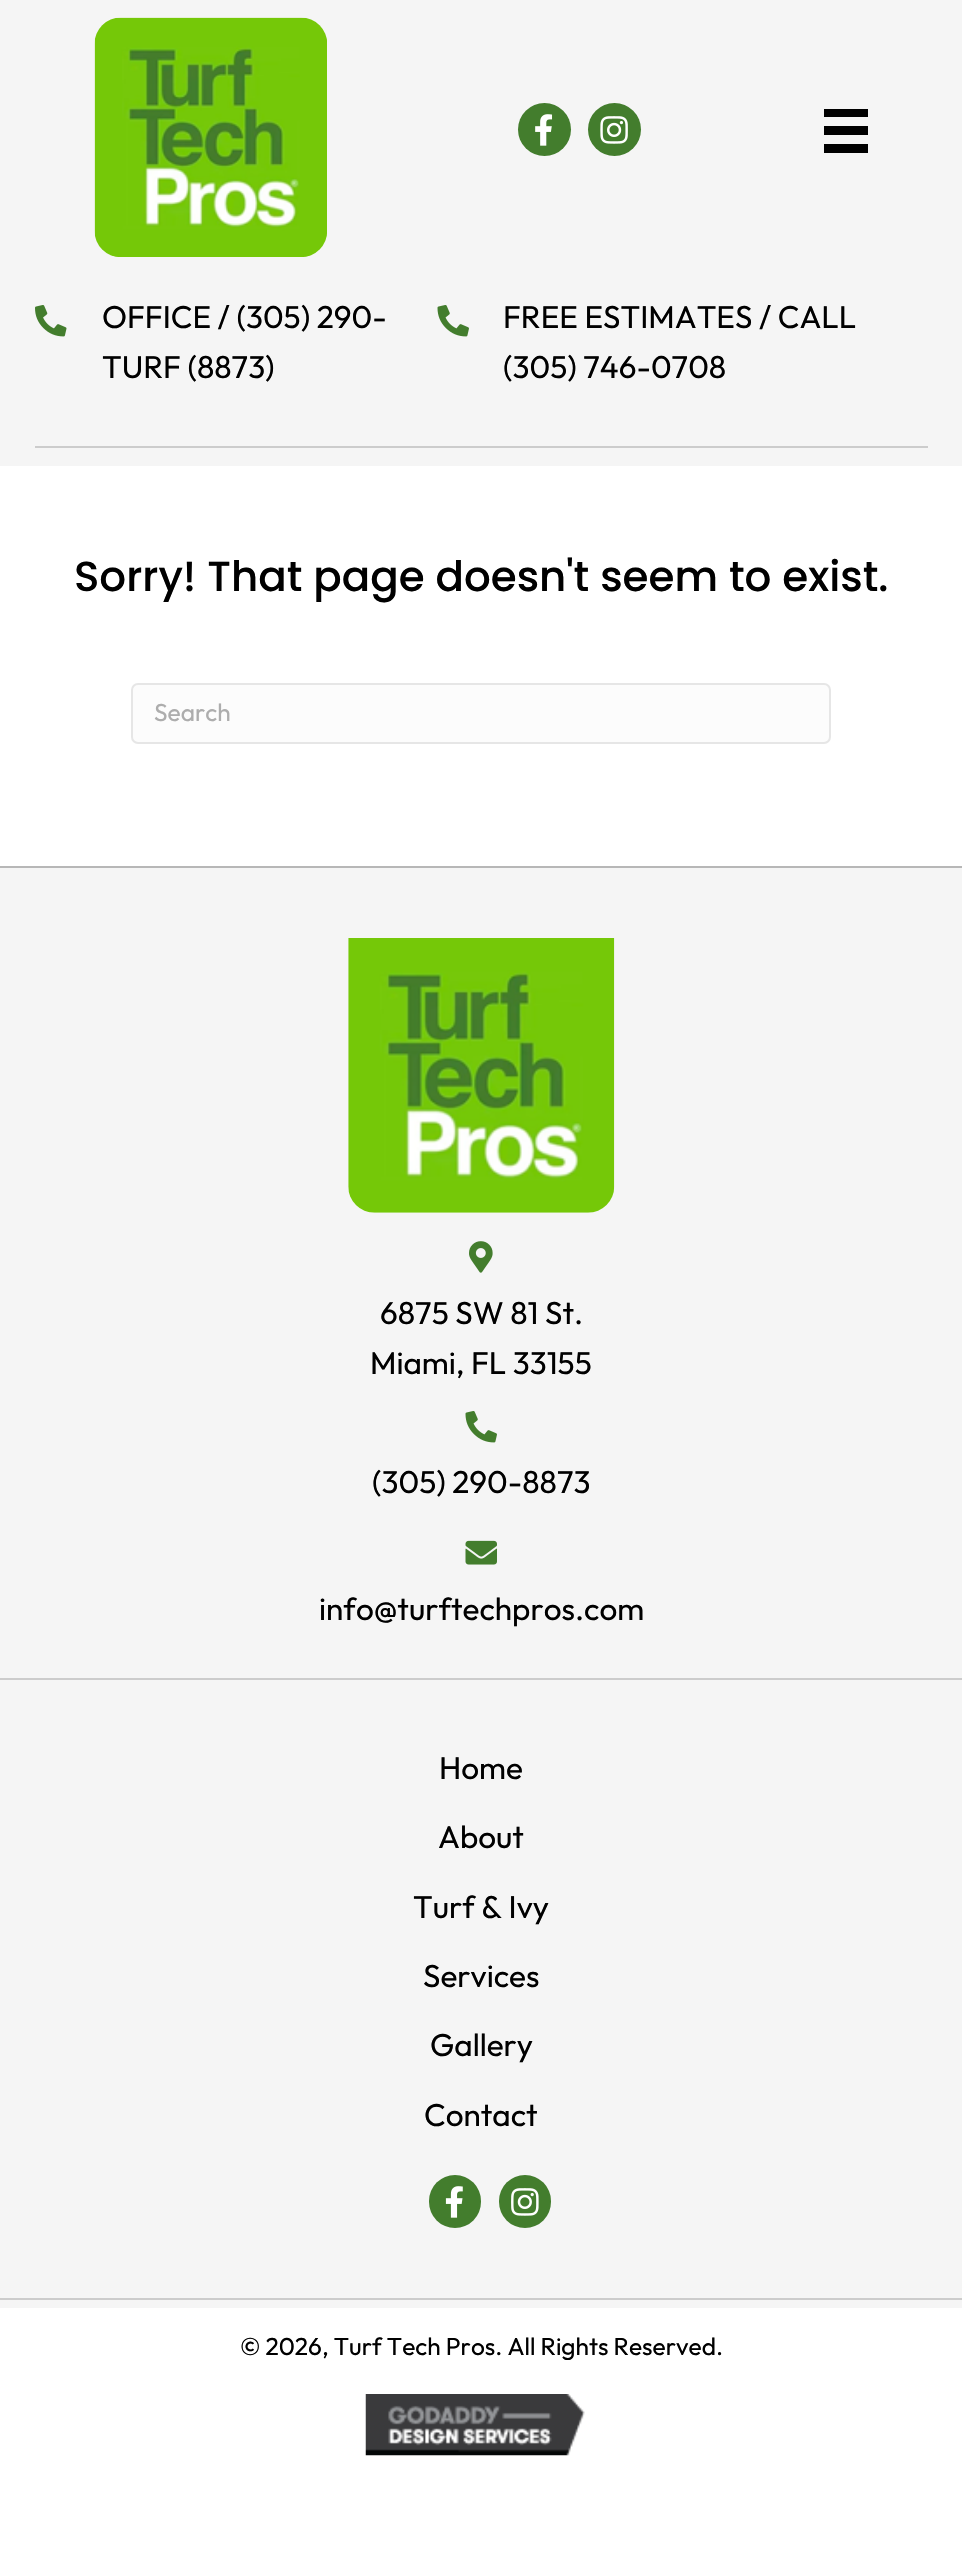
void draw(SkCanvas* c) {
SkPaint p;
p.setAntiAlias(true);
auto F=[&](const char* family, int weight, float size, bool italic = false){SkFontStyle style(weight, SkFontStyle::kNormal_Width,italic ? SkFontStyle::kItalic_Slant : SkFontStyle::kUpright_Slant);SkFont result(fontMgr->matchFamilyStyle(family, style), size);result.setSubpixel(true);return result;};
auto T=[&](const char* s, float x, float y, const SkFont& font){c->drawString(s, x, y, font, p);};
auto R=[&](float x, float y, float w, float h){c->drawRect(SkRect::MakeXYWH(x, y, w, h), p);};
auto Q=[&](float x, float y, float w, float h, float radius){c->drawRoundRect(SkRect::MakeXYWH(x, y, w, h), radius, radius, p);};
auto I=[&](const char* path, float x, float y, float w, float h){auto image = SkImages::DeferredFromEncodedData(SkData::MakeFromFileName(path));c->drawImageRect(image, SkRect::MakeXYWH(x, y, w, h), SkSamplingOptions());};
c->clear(0xffffffff);
p.setColor(0xfff5f5f5);
R(0,0,962,466);
I("1.png",94,17,233,240);
p.setColor(0xff437d2d);
c->drawCircle(544.5,129.5,26.5,p);
I("2.png",535,114,18,32);
c->drawCircle(614.5,129.5,26.5,p);
I("3.png",600,116,28,28);
p.setColor(0xff000000);
R(824,109,44,8);
R(824,126,44,9);
R(824,144,44,9);
I("4.png",35,305,32,32);
auto f1 = F("Outfit",400,31.5);
T("OFFICE / (305) 290-",102,328,f1);
T("TURF (8873)",102,378,f1);
I("5.png",437,305,32,32);
T("FREE ESTIMATES / CALL",503,328,f1);
T("(305) 746-0708",503,378,f1);
p.setColor(0xffcccccc);
R(35,446,893,2);
auto f2 = F("Poppins",500,42);
p.setColor(0xff000000);
T("Sorry! That page doesn't seem to exist.",74,591,f2);
p.setColor(0xfffcfcfc);
c->drawRoundRect(SkRect::MakeXYWH(132,684,698,59),6,6,p);
p.setStroke(true);
p.setStrokeWidth(2);
p.setColor(0xffe6e6e6);
c->drawRoundRect(SkRect::MakeXYWH(132,684,698,59),6,6,p);
auto f3 = F("Outfit",400,24.5);
p.setStroke(false);
p.setColor(0xffadadad);
T("Search",154,721,f3);
p.setColor(0xfff5f5f5);
R(0,868,962,1440);
p.setColor(0xffb7b7b7);
R(0,866,962,2);
I("6.png",348,938,267,275);
I("7.png",469,1241,24,32);
p.setColor(0xff000000);
T("6875 SW 81 St.",380,1324,f1);
T("Miami, FL 33155",370,1374,f1);
I("5.png",465,1411,32,32);
T("(305) 290-8873",372,1493,f1);
I("8.png",465,1540,32,25);
T("info@turftechpros.com",319,1620,f1);
p.setColor(0xffcccccc);
R(0,1678,962,2);
p.setColor(0xff000000);
T("Home",439,1779,f1);
T("About",438,1848,f1);
T("Turf & Ivy",413,1918,f1);
T("Services",423,1987,f1);
T("Gallery",430,2056,f1);
T("Contact",424,2126,f1);
p.setColor(0xff437d2d);
Q(429,2175,52,53,26);
I("9.png",445,2186,18,32);
Q(499,2175,52,53,26);
I("10.png",511,2188,28,28);
p.setColor(0xffcccccc);
R(0,2298,962,2);
p.setColor(0xff000000);
T("© 2026, Turf Tech Pros. All Rights Reserved.",240,2355,f3);
I("11.png",365,2394,220,62);
}
